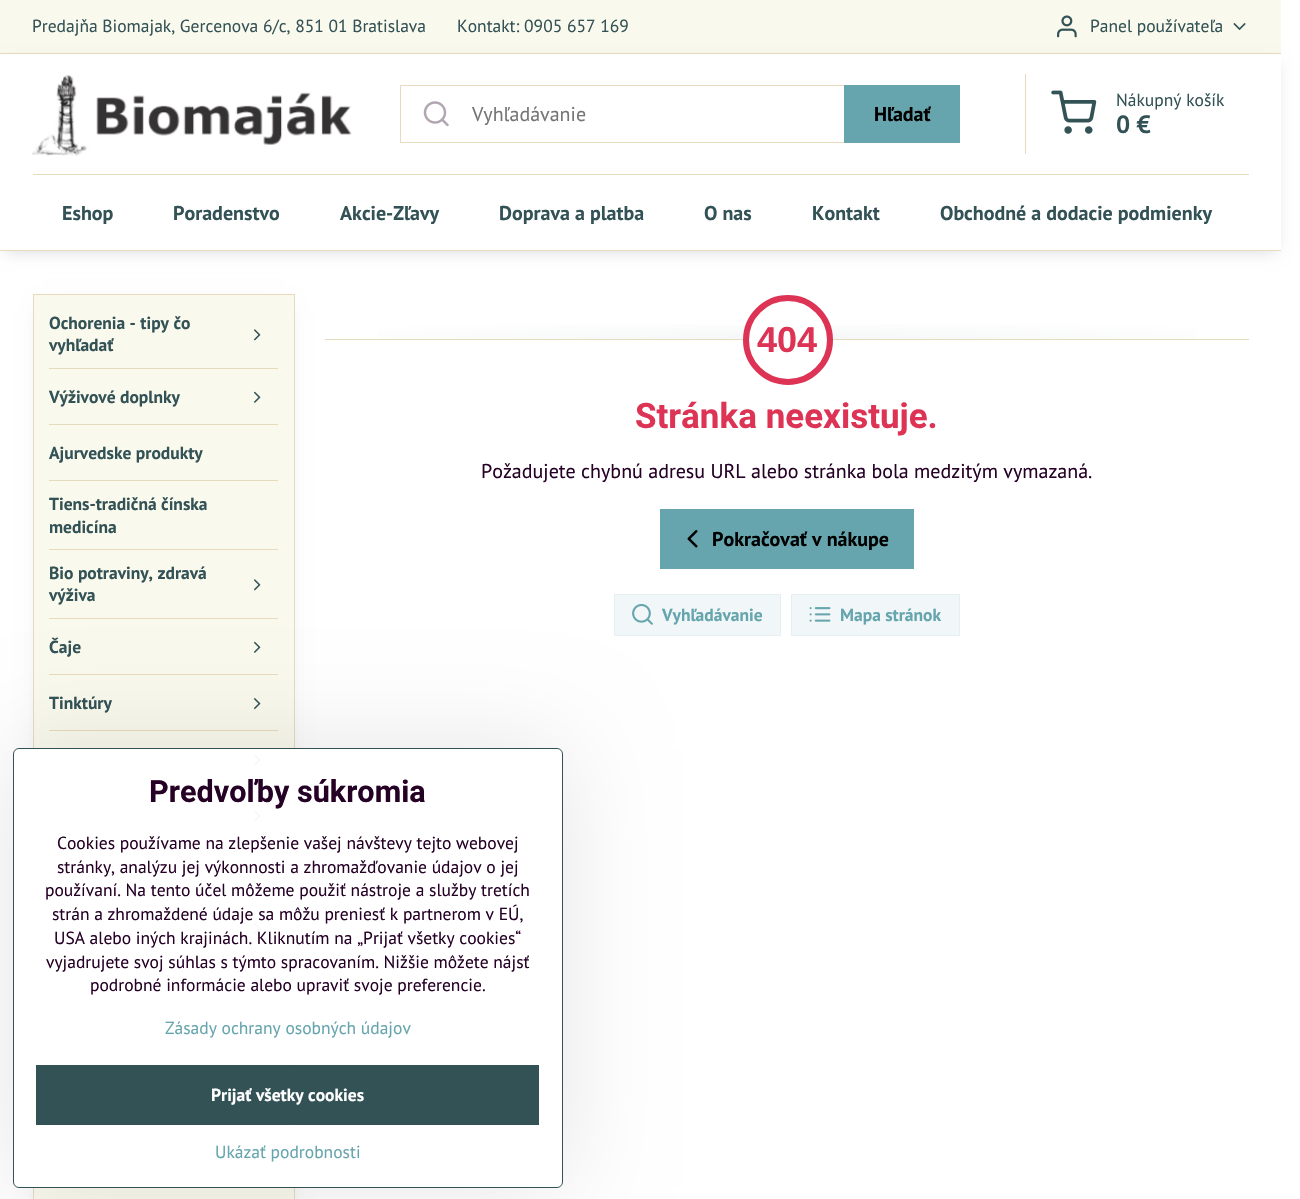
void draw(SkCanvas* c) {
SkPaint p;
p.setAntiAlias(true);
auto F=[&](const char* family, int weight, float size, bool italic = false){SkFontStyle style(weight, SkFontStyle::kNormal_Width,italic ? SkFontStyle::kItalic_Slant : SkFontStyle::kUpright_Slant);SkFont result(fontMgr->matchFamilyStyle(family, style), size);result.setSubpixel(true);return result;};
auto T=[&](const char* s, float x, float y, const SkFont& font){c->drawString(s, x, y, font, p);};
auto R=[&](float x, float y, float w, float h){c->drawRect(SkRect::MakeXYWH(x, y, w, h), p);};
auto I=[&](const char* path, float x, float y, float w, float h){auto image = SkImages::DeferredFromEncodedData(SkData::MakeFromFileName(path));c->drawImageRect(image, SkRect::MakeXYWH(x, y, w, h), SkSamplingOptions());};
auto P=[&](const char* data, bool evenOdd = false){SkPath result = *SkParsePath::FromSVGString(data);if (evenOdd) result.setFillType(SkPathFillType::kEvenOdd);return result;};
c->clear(0xffffffff);
p.setColor(0xfffaf9ed);
R(0,0,1281,53);
p.setColor(0xffe6dbbe);
R(0,53,1281,1);
auto f1 = F("PT Sans",400,17.5);
p.setColor(0xff335256);
T("Predajňa Biomajak, Gercenova 6/c, 851 01 Bratislava",32,32,f1);
T("Kontakt: 0905 657 169",457,32,f1);
I("1.png",1057,15,20,23);
T("Panel používateľa",1090,32,f1);
I("2.png",1233,23,13,7);
c->save();
c->clipPath(P("M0 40h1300v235h-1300zm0 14h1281v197h-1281z",true),true);
p.setColor(0x26000014);
p.setMaskFilter(SkMaskFilter::MakeBlur(kNormal_SkBlurStyle, 7.5));
c->drawRect(SkRect::MakeXYWH(5,64,1271,187),p);
p.setMaskFilter(nullptr);
c->restore();
I("3.png",32,75,320,81);
p.setStroke(true);
p.setStrokeWidth(1);
p.setColor(0xffe6dbbe);
c->drawRect(SkRect::MakeXYWH(400.5,85.5,559,57),p);
I("4.png",423,101,26,26);
auto f2 = F("PT Sans",400,20);
p.setStroke(false);
p.setColor(0xff757575);
T("Vyhľadávanie",472,121,f2);
p.setColor(0xff66a5ad);
R(844,85,116,58);
auto f3 = F("PT Sans",700,20);
p.setColor(0xff000000);
T("Hľadať",874,121,f3);
p.setColor(0xffe6dbbe);
R(1025,74,1,80);
I("5.png",1051,90,46,44);
p.setColor(0xff335256);
T("Nákupný košík",1116,106,f1);
auto f4 = F("PT Sans",700,25);
T("0 €",1116,133,f4);
p.setColor(0xffe6dbbe);
R(0,250,1281,1);
R(33,174,1216,1);
p.setColor(0xff335256);
T("Eshop",62,220,f3);
T("Poradenstvo",173,220,f3);
T("Akcie-Zľavy",340,220,f3);
T("Doprava a platba",499,220,f3);
T("O nas",704,220,f3);
T("Kontakt",812,220,f3);
T("Obchodné a dodacie podmienky",940,220,f3);
p.setColor(0x26000014);
p.setMaskFilter(SkMaskFilter::MakeBlur(kNormal_SkBlurStyle, 10));
c->drawRect(SkRect::MakeXYWH(43,309,242,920),p);
p.setMaskFilter(nullptr);
p.setColor(0xfffaf9ed);
c->drawRect(SkRect::MakeXYWH(33.5,294.5,261,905),p);
p.setStroke(true);
p.setColor(0xffe6dbbe);
c->drawRect(SkRect::MakeXYWH(33.5,294.5,261,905),p);
p.setStroke(false);
R(49,368,229,1);
auto f5 = F("PT Sans",700,17.5);
p.setColor(0xff335256);
T("Ochorenia - tipy čo",49,329,f5);
T("vyhľadať",49,351,f5);
I("6.png",253,329,8,12);
p.setColor(0xffe6dbbe);
R(49,424,229,1);
p.setColor(0xff335256);
T("Výživové doplnky",49,403,f5);
I("7.png",253,391,8,12);
p.setColor(0xffe6dbbe);
R(49,480,229,1);
p.setColor(0xff335256);
T("Ajurvedske produkty",49,459,f5);
p.setColor(0xffe6dbbe);
R(49,549,229,1);
p.setColor(0xff335256);
T("Tiens-tradičná čínska",49,510,f5);
T("medicína",49,533,f5);
p.setColor(0xffe6dbbe);
R(49,618,229,1);
p.setColor(0xff335256);
T("Bio potraviny, zdravá",49,579,f5);
T("výživa",49,601,f5);
I("6.png",253,579,8,12);
p.setColor(0xffe6dbbe);
R(49,674,229,1);
p.setColor(0xff335256);
T("Čaje",49,653,f5);
I("7.png",253,641,8,12);
p.setColor(0xffe6dbbe);
R(49,730,229,1);
p.setColor(0xff335256);
T("Tinktúry",49,709,f5);
I("8.png",253,698,8,12);
p.setColor(0xffe6dbbe);
R(49,786,229,1);
I("6.png",253,754,8,12);
R(49,843,229,1);
I("9.png",253,810,8,12);
R(49,899,229,1);
R(49,955,229,1);
I("8.png",253,923,8,12);
R(49,1011,229,1);
I("6.png",253,979,8,12);
R(49,1180,229,1);
I("8.png",253,1148,8,12);
R(325,339,924,1);
{
const SkColor colors[] = {0xfff5f6f7,0xffffffff};
const float stops[] = {0,.7};
SkMatrix m = SkMatrix::Translate(787,339).preScale(784,28);
p.setShader(SkGradientShader::MakeRadial({0, 0}, 1, colors, stops, 2, SkTileMode::kClamp, 0, &m));
p.setAlpha(255);
}
R(378,324,818,15);
p.setShader(nullptr);
p.setColor(0xffffffff);
c->drawCircle(788,340,42,p);
p.setStroke(true);
p.setStrokeWidth(6);
p.setColor(0xffdd3355);
c->drawCircle(788,340,42,p);
auto f6 = F("Liberation Sans",700,36);
p.setStroke(false);
T("404",757,352,f6);
auto f7 = F("Roboto",700,35);
T("Stránka neexistuje.",635,428,f7);
p.setColor(0xff260126);
T("Požadujete chybnú adresu URL alebo stránka bola medzitým vymazaná.",481,478,f2);
p.setColor(0xff66a5ad);
R(660,509,254,60);
I("10.png",687,530,11,18);
p.setColor(0xff000000);
T("Pokračovať v nákupe",712,546,f3);
p.setColor(0xfff1f7f8);
c->drawRect(SkRect::MakeXYWH(614.5,594.5,166,41),p);
p.setStroke(true);
p.setStrokeWidth(1);
p.setColor(0xffe4f0f1);
c->drawRect(SkRect::MakeXYWH(614.5,594.5,166,41),p);
I("11.png",632,604,21,21);
p.setStroke(false);
p.setColor(0xff66a5ad);
T("Vyhľadávanie",662,621,f5);
p.setColor(0xfff1f7f8);
c->drawRect(SkRect::MakeXYWH(791.5,594.5,168,41),p);
p.setStroke(true);
p.setColor(0xffe4f0f1);
c->drawRect(SkRect::MakeXYWH(791.5,594.5,168,41),p);
I("12.png",809,607,22,15);
p.setStroke(false);
p.setColor(0xff66a5ad);
T("Mapa stránok",840,621,f5);
c->save();
c->clipPath(P("M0 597h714v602h-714zm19 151h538c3.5 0 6 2.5 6 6v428c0 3.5-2.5 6-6 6h-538c-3.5 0-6-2.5-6-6v-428c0-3.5 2.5-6 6-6z",true),true);
p.setColor(0x1a000000);
p.setMaskFilter(SkMaskFilter::MakeBlur(kNormal_SkBlurStyle, 50));
c->drawRoundRect(SkRect::MakeXYWH(13,748,550,440),6,6,p);
p.setMaskFilter(nullptr);
c->restore();
p.setColor(0xf2ffffff);
c->drawRoundRect(SkRect::MakeXYWH(13.5,748.5,549,439),5.5,5.5,p);
p.setStroke(true);
p.setColor(0xff335256);
c->drawRoundRect(SkRect::MakeXYWH(13.5,748.5,549,439),5.5,5.5,p);
auto f8 = F("Roboto",700,30.6);
p.setStroke(false);
p.setColor(0xff260126);
T("Predvoľby súkromia",149,802,f8);
T("Cookies používame na zlepšenie vašej návštevy tejto webovej",57,849,f1);
T("stránky, analýzu jej výkonnosti a zhromažďovanie údajov o jej",57,873,f1);
T("používaní. Na tento účel môžeme použiť nástroje a služby tretích",45,896,f1);
T("strán a zhromaždené údaje sa môžu preniesť k partnerom v EÚ,",52,920,f1);
T("USA alebo iných krajinách. Kliknutím na „Prijať všetky cookies“",54,944,f1);
T("vyjadrujete svoj súhlas s týmto spracovaním. Nižšie môžete nájsť",46,968,f1);
T("podrobné informácie alebo upraviť svoje preferencie.",90,991,f1);
p.setColor(0xff66a5ad);
T("Zásady ochrany osobných údajov",165,1034,f1);
p.setColor(0xff335256);
R(36,1065,503,60);
p.setColor(0xffffffff);
T("Prijať všetky cookies",211,1101,f5);
p.setColor(0xff66a5ad);
T("Ukázať podrobnosti",215,1158,f1);
}
